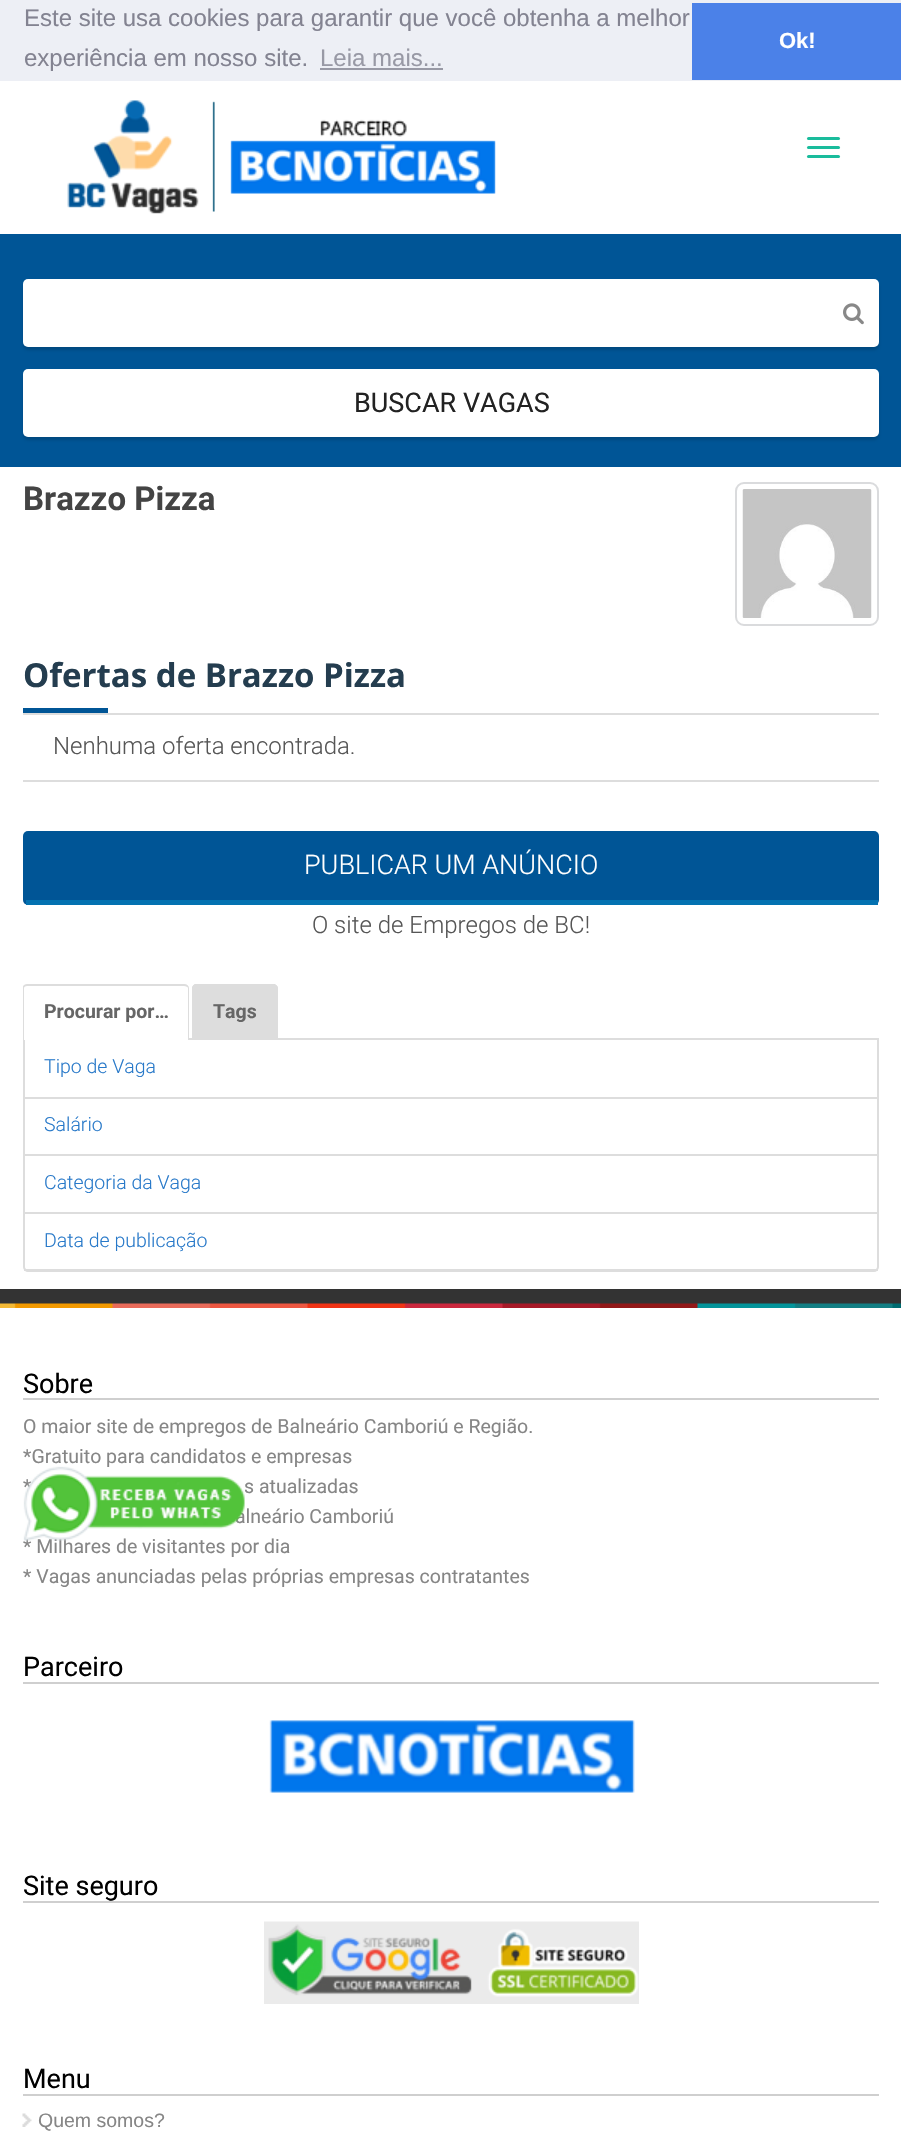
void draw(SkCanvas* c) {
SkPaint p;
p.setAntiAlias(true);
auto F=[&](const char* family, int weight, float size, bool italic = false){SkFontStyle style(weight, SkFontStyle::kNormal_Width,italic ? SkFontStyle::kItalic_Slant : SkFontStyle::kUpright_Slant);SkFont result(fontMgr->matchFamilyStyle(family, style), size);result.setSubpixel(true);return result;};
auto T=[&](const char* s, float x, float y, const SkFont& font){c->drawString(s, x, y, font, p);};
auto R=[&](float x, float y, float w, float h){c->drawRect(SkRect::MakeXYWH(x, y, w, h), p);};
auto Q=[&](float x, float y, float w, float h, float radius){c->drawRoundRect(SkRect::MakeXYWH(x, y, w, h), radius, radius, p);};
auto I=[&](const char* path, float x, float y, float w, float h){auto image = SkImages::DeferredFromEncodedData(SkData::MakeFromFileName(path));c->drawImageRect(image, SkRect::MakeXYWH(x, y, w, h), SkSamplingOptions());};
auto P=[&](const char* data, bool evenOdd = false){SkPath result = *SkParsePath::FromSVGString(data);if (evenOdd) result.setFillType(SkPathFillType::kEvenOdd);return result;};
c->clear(0xff333333);
p.setColor(0xffedeff5);
R(0,0,901,81);
auto f1 = F("Liberation Sans",400,24);
p.setColor(0xff838391);
T("Este site usa cookies para garantir que você obtenha a melhor",24,26,f1);
T("experiência em nosso site.",24,66,f1);
p.setColor(0xff9899a5);
T("Leia mais...",320,66,f1);
R(320,68,123,2);
p.setColor(0xff4b81e8);
R(692,3,209,77);
auto f2 = F("Liberation Sans",700,22);
p.setColor(0xffffffff);
T("Ok!",779,48,f2);
R(0,81,901,1208);
I("1.png",67,100,429,114);
p.setColor(0xff1abc9c);
Q(807,137,33,3,1.5);
Q(807,146,33,3,1.5);
Q(807,155,33,3,1.5);
p.setColor(0xff005596);
R(0,234,901,233);
p.setColor(0x26000000);
p.setMaskFilter(SkMaskFilter::MakeBlur(kNormal_SkBlurStyle, 1.5));
c->drawRoundRect(SkRect::MakeXYWH(23,282,856,68),5,5,p);
p.setMaskFilter(nullptr);
p.setColor(0xffffffff);
Q(23,279,856,68,5);
I("2.png",843,303,21,22);
p.setColor(0x26000000);
p.setMaskFilter(SkMaskFilter::MakeBlur(kNormal_SkBlurStyle, 1.5));
c->drawRoundRect(SkRect::MakeXYWH(23,372,856,68),5,5,p);
p.setMaskFilter(nullptr);
p.setColor(0xffffffff);
Q(23,369,856,68,5);
auto f3 = F("Roboto",400,27);
p.setColor(0xff222222);
T("BUSCAR VAGAS",354,412,f3);
auto f4 = F("Roboto",700,33);
p.setColor(0xff444444);
T("Brazzo Pizza",23,510,f4);
p.setStroke(true);
p.setStrokeWidth(2);
p.setColor(0xffdadbdd);
c->drawRoundRect(SkRect::MakeXYWH(736,483,142,142),8,8,p);
I("3.png",742,489,130,129);
auto f5 = F("Open Sans",700,33);
p.setStroke(false);
p.setColor(0xff243d4f);
T("Ofertas de Brazzo Pizza",23,687,f5);
p.setColor(0xff005596);
R(23,708,85,5);
p.setColor(0xffdddddd);
R(23,713,856,2);
R(23,780,856,2);
auto f6 = F("Roboto",300,24);
p.setColor(0xff565656);
T("Nenhuma oferta encontrada.",53,754,f6);
p.setColor(0xff005596);
Q(23,831,856,74,5);
p.setColor(0xff0371b0);
R(26,900,852,5);
auto f7 = F("Roboto",300,27);
p.setColor(0xffffffff);
T("PUBLICAR UM ANÚNCIO",304,874,f7);
p.setColor(0xff565656);
T("O site de Empregos de BC!",312,933,f6);
p.setStroke(true);
p.setColor(0xffdddddd);
c->drawPath(P("M24 1039h854v228c0 2-2 4-4 4h-846c-2 0-4-2-4-4z"),p);
p.setStroke(false);
p.setColor(0xffffffff);
c->drawPath(P("M28 984h156c3 0 5 2 5 5v51h-166v-51c0-3 2-5 5-5z"),p);
c->save();
c->clipRect(SkRect::MakeXYWH(23,984,856,56));
p.setColor(0xffdddddd);
c->drawPath(P("M27 984h157c3 0 5 2 5 4v52h-167v-52c0-2 3-4 5-4zm0 2h157c2 0 4 1 4 2v52h-164v-52c0-1 1-2 3-2z",true),p);
c->restore();
auto f8 = F("Roboto",700,19.5);
p.setColor(0xff666666);
T("Procurar por…",44,1018,f8);
p.setColor(0xffdddddd);
c->drawPath(P("M197 984h76c3 0 5 2 5 5v51h-86v-51c0-3 2-5 5-5z"),p);
c->drawPath(P("M196 984h77c2 0 5 2 5 4v52h-86v-52c0-2 2-4 4-4zm0 2h77c2 0 3 1 3 2v52h-82v-52c0-1 1-2 2-2z",true),p);
p.setColor(0xff666666);
T("Tags",213,1018,f8);
p.setColor(0xffdddddd);
R(24,1097,854,2);
auto f9 = F("Roboto",300,19.5);
p.setColor(0xff2879c9);
T("Tipo de Vaga",44,1073,f9);
p.setColor(0xffdddddd);
R(24,1154,854,2);
p.setColor(0xff2879c9);
T("Salário",44,1131,f9);
p.setColor(0xffdddddd);
R(24,1212,854,2);
p.setColor(0xff2879c9);
T("Categoria da Vaga",44,1189,f9);
p.setColor(0xffdddddd);
R(24,1269,854,2);
p.setColor(0xff2879c9);
T("Data de publicação",44,1247,f9);
p.setColor(0xffffffff);
R(0,1308,901,828);
I("4.png",0,1303,901,5);
p.setColor(0xffcfcfcf);
R(23,1398,856,2);
p.setColor(0xff000000);
T("Sobre",23,1393,f3);
auto f10 = F("Roboto",400,19.5);
p.setColor(0xff868686);
T("O maior site de empregos de Balneário Camboriú e Região.",23,1433,f10);
T("*Gratuito para candidatos e empresas",23,1463,f10);
T("*",23,1493,f10);
T("s atualizadas",244,1493,f10);
T("alneário Camboriú",235,1523,f10);
T("* Milhares de visitantes por dia",23,1553,f10);
T("* Vagas anunciadas pelas próprias empresas contratantes",23,1583,f10);
p.setColor(0xffcfcfcf);
R(23,1682,856,2);
p.setColor(0xff000000);
T("Parceiro",23,1676,f3);
I("5.png",269,1720,366,73);
p.setColor(0xffcfcfcf);
R(23,1901,856,2);
p.setColor(0xff000000);
T("Site seguro",23,1895,f3);
I("6.png",264,1921,375,83);
p.setColor(0xffcfcfcf);
R(23,2094,856,2);
p.setColor(0xff000000);
T("Menu",23,2088,f3);
I("7.png",22,2113,10,14);
auto f11 = F("Liberation Sans",400,19.5);
p.setColor(0xff868686);
T("Quem somos?",38,2127,f11);
I("8.png",23,1466,222,75);
}
